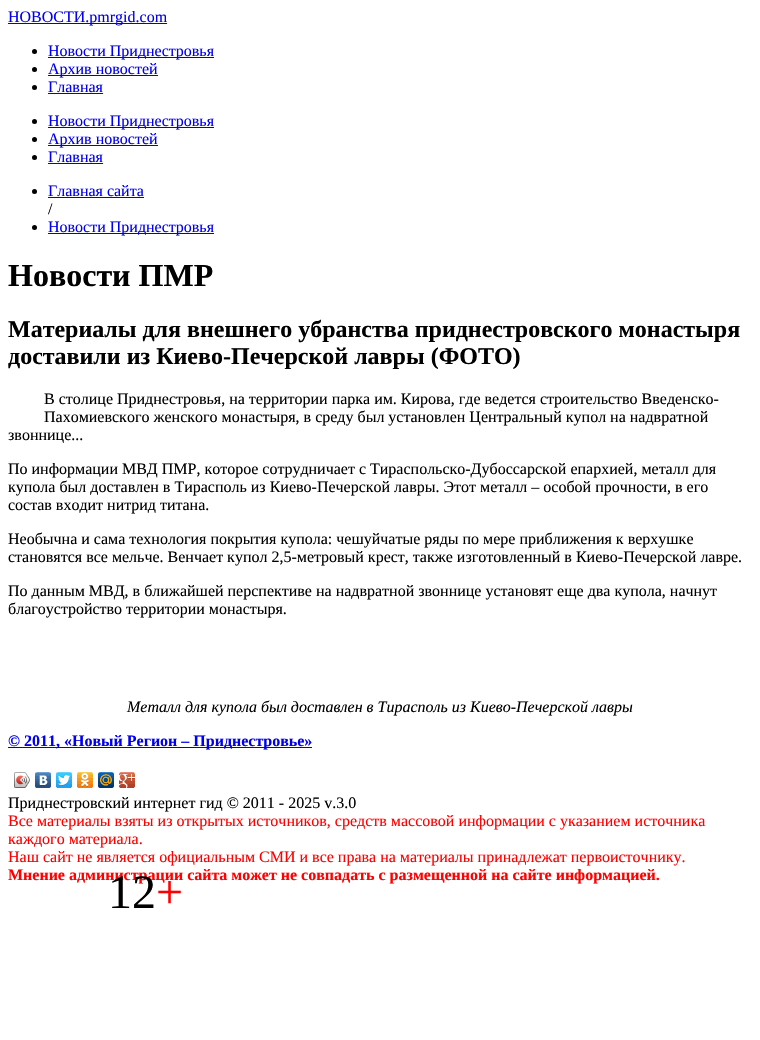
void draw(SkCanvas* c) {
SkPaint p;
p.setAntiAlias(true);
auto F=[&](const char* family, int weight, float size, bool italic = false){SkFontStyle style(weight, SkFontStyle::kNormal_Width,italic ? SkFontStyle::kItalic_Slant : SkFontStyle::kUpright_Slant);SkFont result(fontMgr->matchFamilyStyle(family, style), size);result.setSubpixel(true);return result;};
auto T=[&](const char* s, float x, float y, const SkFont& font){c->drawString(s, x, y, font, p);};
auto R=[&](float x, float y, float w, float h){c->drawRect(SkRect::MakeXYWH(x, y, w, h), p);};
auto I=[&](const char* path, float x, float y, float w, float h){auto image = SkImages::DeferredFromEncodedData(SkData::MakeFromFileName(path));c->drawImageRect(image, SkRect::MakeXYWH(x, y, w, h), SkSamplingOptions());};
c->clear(0xffffffff);
p.setColor(0xff0000ee);
R(8,23,159,1);
auto f1 = F("Liberation Serif",400,16);
T("НОВОСТИ.pmrgid.com",8,22,f1);
p.setColor(0xff000000);
c->drawCircle(34.5,51.5,2.5,p);
p.setColor(0xff0000ee);
R(48,57,166,1);
T("Новости Приднестровья",48,56,f1);
p.setColor(0xff000000);
c->drawCircle(34.5,69.5,2.5,p);
p.setColor(0xff0000ee);
R(48,75,110,1);
T("Архив новостей",48,74,f1);
p.setColor(0xff000000);
c->drawCircle(34.5,87.5,2.5,p);
p.setColor(0xff0000ee);
T("Главная",48,92,f1);
R(48,93,55,1);
p.setColor(0xff000000);
c->drawCircle(34.5,121.5,2.5,p);
p.setColor(0xff0000ee);
R(48,127,166,1);
T("Новости Приднестровья",48,126,f1);
p.setColor(0xff000000);
c->drawCircle(34.5,139.5,2.5,p);
p.setColor(0xff0000ee);
R(48,145,110,1);
T("Архив новостей",48,144,f1);
p.setColor(0xff000000);
c->drawCircle(34.5,157.5,2.5,p);
p.setColor(0xff0000ee);
T("Главная",48,162,f1);
R(48,163,55,1);
p.setColor(0xff000000);
c->drawCircle(34.5,191.5,2.5,p);
p.setColor(0xff0000ee);
T("Главная сайта",48,196,f1);
R(48,197,96,1);
p.setColor(0xff000000);
T("/",48,214,f1);
c->drawCircle(34.5,227.5,2.5,p);
p.setColor(0xff0000ee);
R(48,233,166,1);
T("Новости Приднестровья",48,232,f1);
auto f2 = F("Liberation Serif",700,32);
p.setColor(0xff000000);
T("Новости ПМР",8,286,f2);
auto f3 = F("Liberation Serif",700,24);
T("Материалы для внешнего убранства приднестровского монастыря",8,337,f3);
T("доставили из Киево-Печерской лавры (ФОТО)",8,364,f3);
T("В столице Приднестровья, на территории парка им. Кирова, где ведется строительство Введенско-",44,404,f1);
T("Пахомиевского женского монастыря, в среду был установлен Центральный купол на надвратной",44,422,f1);
T("звоннице...",8,440,f1);
T("По информации МВД ПМР, которое сотрудничает с Тираспольско-Дубоссарской епархией, металл для",8,474,f1);
T("купола был доставлен в Тирасполь из Киево-Печерской лавры. Этот металл – особой прочности, в его",8,492,f1);
T("состав входит нитрид титана.",8,510,f1);
T("Необычна и сама технология покрытия купола: чешуйчатые ряды по мере приближения к верхушке",8,544,f1);
T("становятся все мельче. Венчает купол 2,5-метровый крест, также изготовленный в Киево-Печерской лавре.",8,562,f1);
T("По данным МВД, в ближайшей перспективе на надвратной звоннице установят еще два купола, начнут",8,596,f1);
T("благоустройство территории монастыря.",8,614,f1);
auto f4 = F("Liberation Serif",400,16,true);
T("Металл для купола был доставлен в Тирасполь из Киево-Печерской лавры",127,712,f4);
p.setColor(0xff0000ee);
R(8,747,304,1);
auto f5 = F("Liberation Serif",700,16);
T("© 2011, «Новый Регион – Приднестровье»",8,746,f5);
I("1.png",14,772,16,16);
I("2.png",14,772,16,16);
I("3.png",35,772,16,16);
I("4.png",56,772,16,16);
I("5.png",77,772,16,16);
I("6.png",98,772,16,16);
I("7.png",119,772,16,16);
p.setColor(0xff000000);
T("Приднестровский интернет гид © 2011 - 2025 v.3.0",8,808,f1);
p.setColor(0xffff0000);
T("Все материалы взяты из открытых источников, средств массовой информации с указанием источника",8,826,f1);
T("каждого материала.",8,844,f1);
T("Наш сайт не является официальным СМИ и все права на материалы принадлежат первоисточнику.",8,862,f1);
T("Мнение администрации сайта может не совпадать с размещенной на сайте информацией.",8,880,f5);
auto f6 = F("Liberation Serif",400,48);
p.setColor(0xff000000);
T("12",108,908,f6);
p.setColor(0xffff0000);
T("+",156,908,f6);
}
